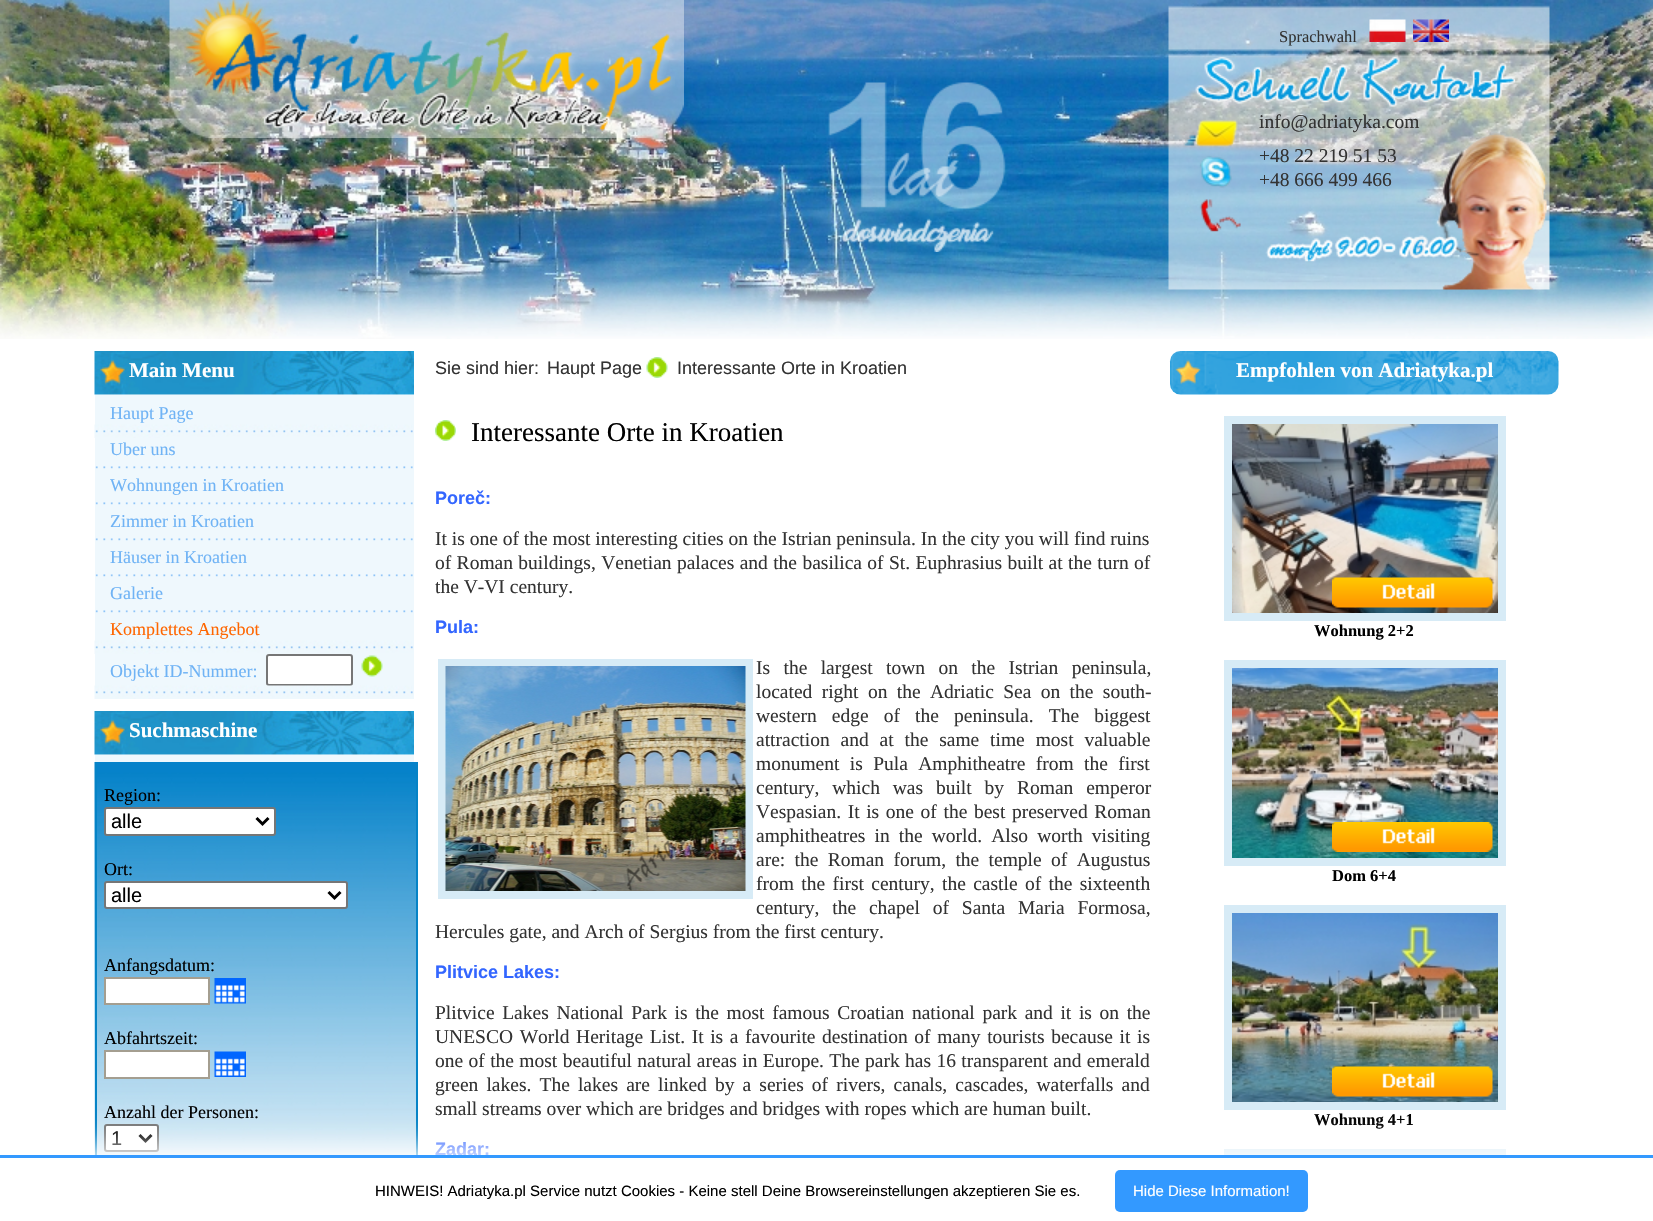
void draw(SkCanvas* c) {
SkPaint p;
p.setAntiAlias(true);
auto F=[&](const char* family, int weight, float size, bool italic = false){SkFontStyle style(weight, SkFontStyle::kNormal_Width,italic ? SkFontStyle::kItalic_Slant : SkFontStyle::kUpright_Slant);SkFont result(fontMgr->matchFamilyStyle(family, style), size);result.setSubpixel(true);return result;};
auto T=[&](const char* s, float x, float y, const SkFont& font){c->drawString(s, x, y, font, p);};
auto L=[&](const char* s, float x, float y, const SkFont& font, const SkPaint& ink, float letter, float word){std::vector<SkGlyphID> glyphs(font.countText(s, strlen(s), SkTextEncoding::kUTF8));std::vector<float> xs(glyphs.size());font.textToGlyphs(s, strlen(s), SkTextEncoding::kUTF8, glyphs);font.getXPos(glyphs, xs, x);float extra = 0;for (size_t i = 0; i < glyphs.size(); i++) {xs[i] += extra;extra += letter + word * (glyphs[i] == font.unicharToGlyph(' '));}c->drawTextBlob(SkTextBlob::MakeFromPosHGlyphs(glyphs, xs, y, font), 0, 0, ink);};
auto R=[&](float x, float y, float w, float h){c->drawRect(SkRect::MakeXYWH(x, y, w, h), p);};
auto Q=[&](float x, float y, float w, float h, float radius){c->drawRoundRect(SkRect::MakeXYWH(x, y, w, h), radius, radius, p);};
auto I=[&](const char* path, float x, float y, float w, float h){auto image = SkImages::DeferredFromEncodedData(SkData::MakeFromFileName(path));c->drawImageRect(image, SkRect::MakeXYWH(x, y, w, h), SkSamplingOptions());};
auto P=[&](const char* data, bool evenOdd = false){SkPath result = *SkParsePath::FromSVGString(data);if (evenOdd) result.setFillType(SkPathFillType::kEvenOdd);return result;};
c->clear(0xffffffff);
I("1.png",0,0,1653,339);
I("2.png",169,0,515,138);
I("3.png",184,0,491,134);
I("4.png",828,82,178,170);
I("5.png",1168,5,382,285);
auto f1 = F("Liberation Serif",400,16.5);
p.setColor(0xff333333);
T("Sprachwahl",1279,42,f1);
I("6.png",1369,19,37,23);
I("7.png",1413,19,36,23);
auto f2 = F("Liberation Serif",400,19.5);
T("info@adriatyka.com",1259,128,f2);
T("+48 22 219 51 53",1259,162,f2);
T("+48 666 499 466",1259,186,f2);
I("8.png",94,351,320,44);
auto f3 = F("Liberation Serif",700,21);
p.setColor(0xffffffff);
T("Main Menu",129,377,f3);
p.setColor(0xffeff8fd);
R(95,395,319,304);
auto f4 = F("Liberation Serif",400,18);
p.setColor(0xff6fb3f5);
T("Haupt Page",110,419,f4);
I("9.png",94,424,319,14);
T("Uber uns",110,455,f4);
I("10.png",95,466,318,3);
T("Wohnungen in Kroatien",110,491,f4);
I("10.png",95,502,318,3);
T("Zimmer in Kroatien",110,527,f4);
I("10.png",95,538,318,3);
T("Häuser in Kroatien",110,563,f4);
I("10.png",95,574,318,3);
T("Galerie",110,599,f4);
I("10.png",95,610,318,3);
p.setColor(0xffff6600);
T("Komplettes Angebot",110,635,f4);
I("9.png",94,640,319,14);
p.setColor(0xff6fb3f5);
T("Objekt ID-Nummer:",110,677,f4);
p.setColor(0xffffffff);
c->drawRoundRect(SkRect::MakeXYWH(267,655,85,30),2,2,p);
p.setStroke(true);
p.setStrokeWidth(2);
p.setColor(0xff767676);
c->drawRoundRect(SkRect::MakeXYWH(267,655,85,30),2,2,p);
I("11.png",361,655,22,22);
I("12.png",94,685,319,14);
I("8.png",94,711,320,44);
p.setStroke(false);
p.setColor(0xffffffff);
T("Suchmaschine",129,737,f3);
p.setColor(0xffeff8fd);
R(95,755,319,7);
I("13.png",94,762,322,393);
p.setColor(0xff0683c6);
R(416,762,2,393);
R(95,762,2,393);
p.setColor(0xff000000);
T("Region:",104,801,f4);
p.setColor(0xffffffff);
c->drawRoundRect(SkRect::MakeXYWH(105,808,170,27),2,2,p);
p.setStroke(true);
p.setColor(0xff767676);
c->drawRoundRect(SkRect::MakeXYWH(105,808,170,27),2,2,p);
p.setStrokeWidth(3);
p.setColor(0xff000000);
c->drawPath(P("M256.5 818l6 6l6-6"),p);
auto f5 = F("Liberation Sans",400,20);
p.setStroke(false);
T("alle",111,828,f5);
T("Ort:",104,875,f4);
p.setColor(0xffffffff);
c->drawRoundRect(SkRect::MakeXYWH(105,882,242,26),2,2,p);
p.setStroke(true);
p.setStrokeWidth(2);
p.setColor(0xff767676);
c->drawRoundRect(SkRect::MakeXYWH(105,882,242,26),2,2,p);
p.setStrokeWidth(3);
p.setColor(0xff000000);
c->drawPath(P("M328.5 892l6 6l6-6"),p);
p.setStroke(false);
T("alle",111,902,f5);
T("Anfangsdatum:",104,971,f4);
p.setColor(0xffffffff);
c->drawRect(SkRect::MakeXYWH(105,978,104,26),p);
p.setStroke(true);
p.setStrokeWidth(2);
p.setColor(0xffa49e90);
c->drawRect(SkRect::MakeXYWH(105,978,104,26),p);
I("14.png",214,978,32,26);
p.setStroke(false);
p.setColor(0xff000000);
T("Abfahrtszeit:",104,1044,f4);
p.setColor(0xffffffff);
c->drawRect(SkRect::MakeXYWH(105,1051,104,27),p);
p.setStroke(true);
p.setColor(0xffa49e90);
c->drawRect(SkRect::MakeXYWH(105,1051,104,27),p);
I("15.png",214,1051,32,26);
p.setStroke(false);
p.setColor(0xff000000);
T("Anzahl der Personen:",104,1118,f4);
p.setColor(0xffffffff);
c->drawRoundRect(SkRect::MakeXYWH(105,1125,53,26),2,2,p);
p.setStroke(true);
p.setColor(0xff767676);
c->drawRoundRect(SkRect::MakeXYWH(105,1125,53,26),2,2,p);
p.setStrokeWidth(3);
p.setColor(0xff000000);
c->drawPath(P("M139.5 1135l6 6l6-6"),p);
p.setStroke(false);
T("1",111,1145,f5);
auto f6 = F("Liberation Sans",400,18);
p.setColor(0xff333333);
T("Sie sind hier:",435,374,f6);
T("Haupt Page",547,374,f6);
I("16.png",646,357,22,21);
T("Interessante Orte in Kroatien",677,374,f6);
I("17.png",435,420,21,21);
auto f7 = F("Liberation Serif",400,27);
p.setColor(0xff000000);
T("Interessante Orte in Kroatien",471,441,f7);
auto f8 = F("Liberation Sans",700,18);
p.setColor(0xff3366ff);
T("Poreč:",435,504,f8);
p.setColor(0xff333333);
T("It is one of the most interesting cities on the Istrian peninsula. In the city you will find ruins",435,545,f2);
L("of Roman buildings, Venetian palaces and the basilica of St. Euphrasius built at the turn of",435,569,f2,p,0,.5);
T("the V-VI century.",435,593,f2);
p.setColor(0xff3366ff);
T("Pula:",435,633,f8);
p.setStroke(true);
p.setStrokeWidth(8);
p.setColor(0xffd7ebf6);
c->drawRect(SkRect::MakeXYWH(442,663,307,232),p);
I("18.png",445,666,301,225);
p.setStroke(false);
p.setColor(0xff333333);
L("Is the largest town on the Istrian peninsula,",756,674,f2,p,0,8.5);
L("located right on the Adriatic Sea on the south-",756,698,f2,p,0,4.5);
L("western edge of the peninsula. The biggest",756,722,f2,p,0,10.25);
L("attraction and at the same time most valuable",756,746,f2,p,0,6);
L("monument is Pula Amphitheatre from the first",756,770,f2,p,0,5.5);
L("century, which was built by Roman emperor",756,794,f2,p,0,8);
L("Vespasian. It is one of the best preserved Roman",756,818,f2,p,0,1.75);
L("amphitheatres in the world. Also worth visiting",756,842,f2,p,0,4.25);
L("are: the Roman forum, the temple of Augustus",756,866,f2,p,0,4.5);
L("from the first century, the castle of the sixteenth",756,890,f2,p,0,2.5);
L("century, the chapel of Santa Maria Formosa,",756,914,f2,p,0,8);
T("Hercules gate, and Arch of Sergius from the first century.",435,938,f2);
p.setColor(0xff3366ff);
T("Plitvice Lakes:",435,978,f8);
p.setColor(0xff333333);
L("Plitvice Lakes National Park is the most famous Croatian national park and it is on the",435,1019,f2,p,0,2.75);
L("UNESCO World Heritage List. It is a favourite destination of many tourists because it is",435,1043,f2,p,0,1.75);
L("one of the most beautiful natural areas in Europe. The park has 16 transparent and emerald",435,1067,f2,p,0,.5);
L("green lakes. The lakes are linked by a series of rivers, canals, cascades, waterfalls and",435,1091,f2,p,0,3.25);
T("small streams over which are bridges and bridges with ropes which are human built.",435,1115,f2);
p.setColor(0xff3366ff);
T("Zadar:",435,1155,f8);
I("19.png",1169,351,390,44);
p.setColor(0xffffffff);
T("Empfohlen von Adriatyka.pl",1236,377,f3);
I("20.png",1232,424,266,189);
p.setStroke(true);
p.setColor(0xffd7ebf6);
c->drawRect(SkRect::MakeXYWH(1228,420,274,197),p);
I("21.png",1332,577,161,31);
auto f9 = F("Liberation Serif",700,16.5);
p.setStroke(false);
p.setColor(0xff000000);
T("Wohnung 2+2",1314,636,f9);
I("22.png",1232,668,266,190);
p.setStroke(true);
p.setColor(0xffd7ebf6);
c->drawRect(SkRect::MakeXYWH(1228,664,274,198),p);
I("23.png",1332,822,161,30);
p.setStroke(false);
p.setColor(0xff000000);
T("Dom 6+4",1332,881,f9);
I("24.png",1232,913,266,189);
p.setStroke(true);
p.setColor(0xffd7ebf6);
c->drawRect(SkRect::MakeXYWH(1228,909,274,197),p);
I("25.png",1332,1066,161,31);
p.setStroke(false);
p.setColor(0xff000000);
T("Wohnung 4+1",1314,1125,f9);
p.setStroke(true);
p.setColor(0xffd7ebf6);
c->drawRect(SkRect::MakeXYWH(1228,1153,274,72),p);
p.setStroke(false);
p.setColor(0xffffffff);
p.setMaskFilter(SkMaskFilter::MakeBlur(kNormal_SkBlurStyle, 15));
c->drawRect(SkRect::MakeXYWH(-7,1148,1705,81),p);
p.setMaskFilter(nullptr);
R(1224,1158,282,63);
p.setColor(0xff3399ff);
R(0,1155,1653,3);
auto f10 = F("Liberation Sans",400,15);
p.setColor(0xff000000);
T("HINWEIS! Adriatyka.pl Service nutzt Cookies - Keine stell Deine Browsereinstellungen akzeptieren Sie es.",375,1196,f10);
p.setColor(0xff3399ff);
Q(1115,1170,193,42,5);
p.setColor(0xffffffff);
T("Hide Diese Information!",1133,1196,f10);
}
